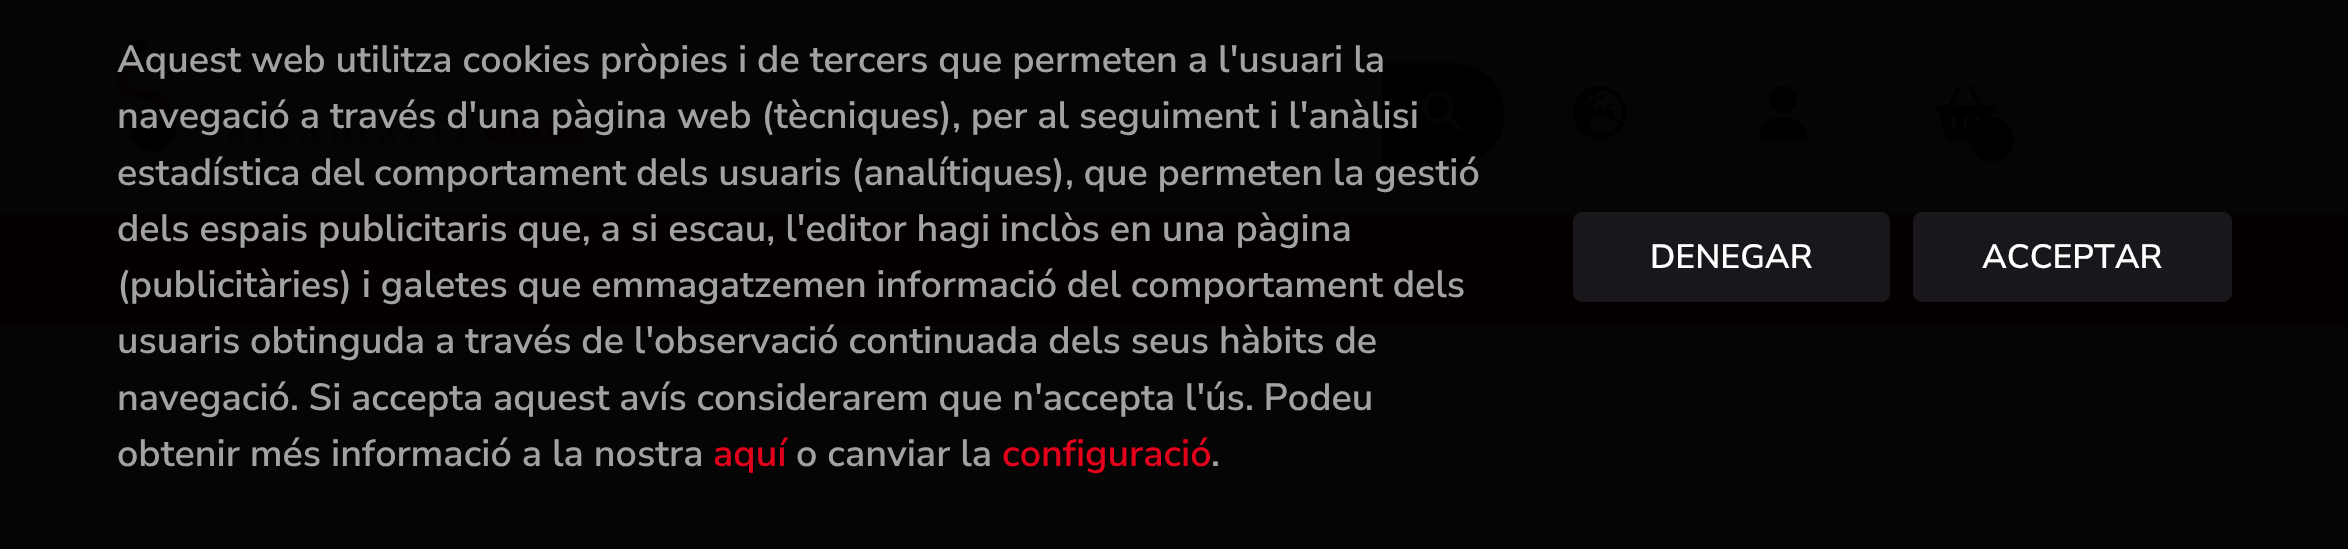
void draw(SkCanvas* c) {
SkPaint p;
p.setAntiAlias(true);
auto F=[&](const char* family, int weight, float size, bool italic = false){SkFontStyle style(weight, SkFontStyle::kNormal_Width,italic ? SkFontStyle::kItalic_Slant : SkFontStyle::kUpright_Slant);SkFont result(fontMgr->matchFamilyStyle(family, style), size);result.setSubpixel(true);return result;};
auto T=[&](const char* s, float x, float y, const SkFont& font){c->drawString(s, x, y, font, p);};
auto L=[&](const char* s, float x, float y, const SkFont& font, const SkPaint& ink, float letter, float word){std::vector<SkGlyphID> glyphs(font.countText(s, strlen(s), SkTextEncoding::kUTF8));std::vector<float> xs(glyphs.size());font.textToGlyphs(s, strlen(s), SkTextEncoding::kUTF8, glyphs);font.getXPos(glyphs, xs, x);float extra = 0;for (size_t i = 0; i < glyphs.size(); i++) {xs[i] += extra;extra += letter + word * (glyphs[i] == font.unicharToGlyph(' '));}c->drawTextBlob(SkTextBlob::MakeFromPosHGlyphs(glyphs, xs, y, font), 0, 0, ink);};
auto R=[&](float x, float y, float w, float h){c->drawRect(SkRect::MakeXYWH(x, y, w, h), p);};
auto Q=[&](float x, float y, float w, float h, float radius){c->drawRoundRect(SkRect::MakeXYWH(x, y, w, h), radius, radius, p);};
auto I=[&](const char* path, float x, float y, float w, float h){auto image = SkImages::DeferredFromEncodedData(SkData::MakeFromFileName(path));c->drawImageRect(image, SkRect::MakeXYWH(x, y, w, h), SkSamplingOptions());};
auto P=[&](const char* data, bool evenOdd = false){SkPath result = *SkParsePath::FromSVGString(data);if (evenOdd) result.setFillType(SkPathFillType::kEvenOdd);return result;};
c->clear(0xff050505);
I("1.png",117,38,480,115);
p.setColor(0xff010001);
c->drawPath(P("M1382 63h72.5c28 0 50.5 22.5 50.5 50.5c0 28-22.5 50.5-50.5 50.5h-72.5z"),p);
I("2.png",1422,91,40,40);
I("3.png",1572,85,55,55);
I("4.png",1759,85,48,55);
I("5.png",1935,85,61,55);
c->drawCircle(1991.5,139.5,22.5,p);
p.setColor(0xff040000);
R(0,214,2348,115);
p.setColor(0xff050505);
R(0,326,2348,2);
I("6.png",426,269,20,11);
auto f1 = F("Nunito Sans",600,37.8);
p.setColor(0xffa2a2a2);
T("Aquest web utilitza cookies pròpies i de tercers que permeten a l'usuari la",117,72,f1);
L("navegació a través d'una pàgina web (tècniques), per al seguiment i l'anàlisi",117,128,f1,p,0,-.1);
L("estadística del comportament dels usuaris (analítiques), que permeten la gestió",117,185,f1,p,0,-.25);
T("dels espais publicitaris que, a si escau, l'editor hagi inclòs en una pàgina",117,241,f1);
L("(publicitàries) i galetes que emmagatzemen informació del comportament dels",117,297,f1,p,0,-.25);
L("usuaris obtinguda a través de l'observació continuada dels seus hàbits de",117,353,f1,p,0,-.1);
L("navegació. Si accepta aquest avís considerarem que n'accepta l'ús. Podeu",117,410,f1,p,0,-.25);
T("obtenir més informació a la nostra",117,466,f1);
p.setColor(0xffe3001b);
T("aquí",713,466,f1);
p.setColor(0xffa2a2a2);
T("o canviar la",796,466,f1);
p.setColor(0xffe3001b);
T("configuració",1002,466,f1);
p.setColor(0xffa2a2a2);
T(".",1211,466,f1);
p.setColor(0xff19171c);
Q(1573,212,317,90,9);
auto f2 = F("Nunito Sans",600,33.75);
p.setColor(0xffffffff);
T("DENEGAR",1650,268,f2);
p.setColor(0xff19171c);
Q(1913,212,319,90,9);
p.setColor(0xffffffff);
T("ACCEPTAR",1982,268,f2);
}
